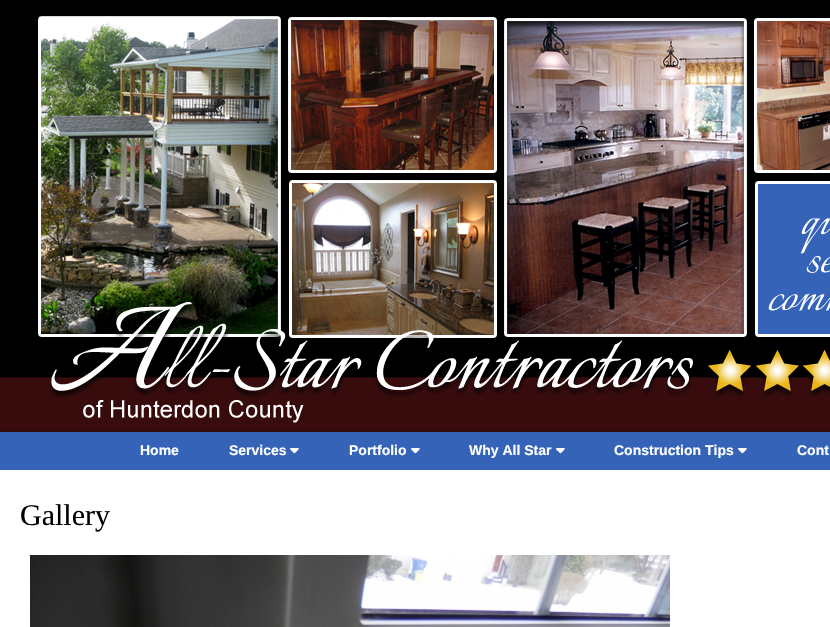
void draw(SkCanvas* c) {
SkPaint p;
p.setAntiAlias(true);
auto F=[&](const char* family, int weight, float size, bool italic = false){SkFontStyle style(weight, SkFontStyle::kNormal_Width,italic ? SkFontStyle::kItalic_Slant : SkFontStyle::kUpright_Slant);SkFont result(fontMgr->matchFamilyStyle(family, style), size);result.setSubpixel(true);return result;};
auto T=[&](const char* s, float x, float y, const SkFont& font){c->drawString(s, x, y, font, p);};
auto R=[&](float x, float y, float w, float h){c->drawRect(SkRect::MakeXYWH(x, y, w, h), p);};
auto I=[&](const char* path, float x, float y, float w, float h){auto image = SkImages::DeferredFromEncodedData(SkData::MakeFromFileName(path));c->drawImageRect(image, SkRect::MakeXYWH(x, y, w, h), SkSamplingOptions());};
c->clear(0xffffffff);
p.setColor(0xff380c0d);
R(0,377,830,55);
I("1.png",0,0,830,423);
c->save();
c->clipRect(SkRect::MakeXYWH(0,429,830,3));
p.setColor(0x80000000);
p.setMaskFilter(SkMaskFilter::MakeBlur(kNormal_SkBlurStyle, 1.5));
c->drawRect(SkRect::MakeXYWH(-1,432,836,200),p);
p.setMaskFilter(nullptr);
c->restore();
p.setColor(0xff3563b8);
R(0,432,830,38);
auto f1 = F("Liberation Sans",700,14);
p.setColor(0xffffffff);
T("Home",140,455,f1);
T("Services",229,455,f1);
I("2.png",290,448,9,6);
T("Portfolio",349,455,f1);
I("2.png",411,448,9,6);
T("Why All Star",469,455,f1);
I("2.png",556,448,9,6);
T("Construction Tips",614,455,f1);
I("2.png",738,448,9,6);
T("Cont",797,455,f1);
auto f2 = F("Liberation Serif",400,30);
p.setColor(0xff000000);
T("Gallery",20,525,f2);
I("3.png",30,555,640,72);
}
